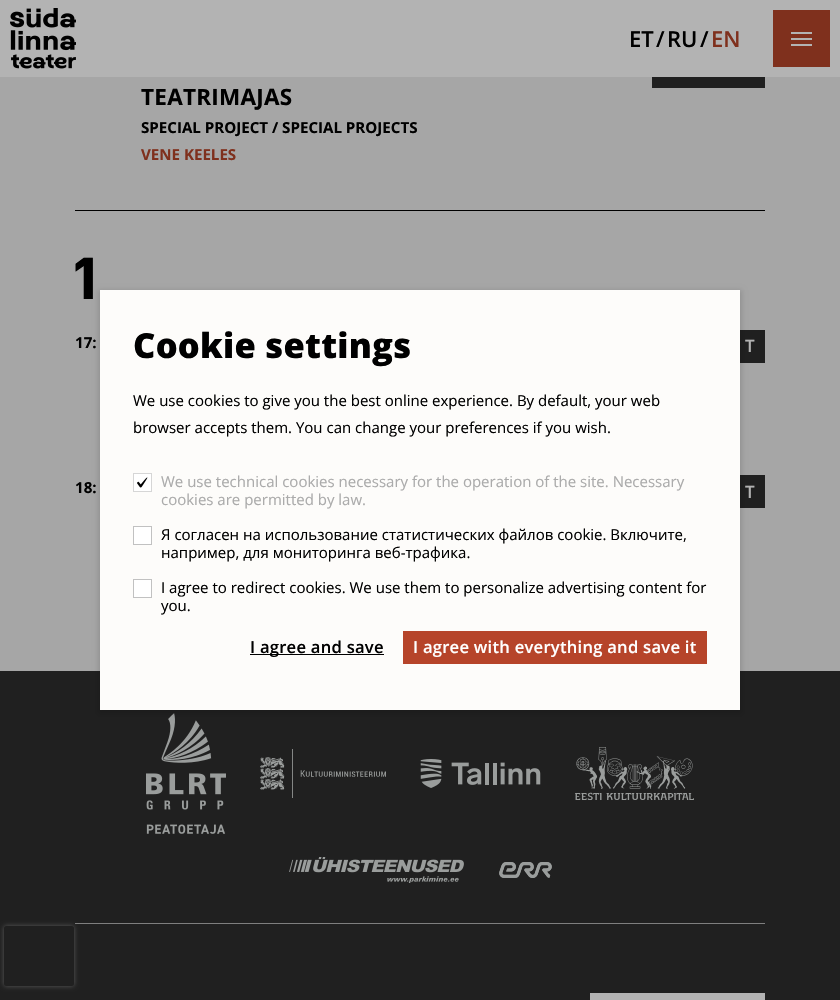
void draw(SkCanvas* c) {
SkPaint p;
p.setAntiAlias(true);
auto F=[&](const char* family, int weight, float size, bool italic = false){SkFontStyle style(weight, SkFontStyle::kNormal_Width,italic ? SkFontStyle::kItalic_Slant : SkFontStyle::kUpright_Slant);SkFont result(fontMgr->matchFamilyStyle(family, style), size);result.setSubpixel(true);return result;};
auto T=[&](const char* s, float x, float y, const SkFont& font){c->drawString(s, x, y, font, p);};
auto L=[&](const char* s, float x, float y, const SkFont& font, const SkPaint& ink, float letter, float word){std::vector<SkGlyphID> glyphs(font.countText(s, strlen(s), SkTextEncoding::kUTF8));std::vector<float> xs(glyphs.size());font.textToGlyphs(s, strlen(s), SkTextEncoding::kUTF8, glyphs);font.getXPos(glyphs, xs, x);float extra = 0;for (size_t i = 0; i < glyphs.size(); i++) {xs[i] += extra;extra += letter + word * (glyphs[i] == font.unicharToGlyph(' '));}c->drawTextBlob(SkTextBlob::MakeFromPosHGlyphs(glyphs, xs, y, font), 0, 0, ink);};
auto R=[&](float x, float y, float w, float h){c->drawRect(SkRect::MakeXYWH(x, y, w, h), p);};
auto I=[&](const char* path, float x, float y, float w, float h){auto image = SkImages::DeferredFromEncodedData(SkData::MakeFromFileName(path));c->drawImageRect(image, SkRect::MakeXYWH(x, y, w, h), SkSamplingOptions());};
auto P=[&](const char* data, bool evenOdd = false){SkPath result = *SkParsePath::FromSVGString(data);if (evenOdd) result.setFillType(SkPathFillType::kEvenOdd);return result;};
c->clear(0xffa6a6a6);
p.setColor(0xffb3b3b3);
R(0,0,840,77);
I("1.png",10,8,66,61);
auto f1 = F("Open Sans",600,22);
p.setColor(0xff000000);
T("ET",629,47,f1);
T("/",656,47,f1);
T("RU",667,47,f1);
T("/",700,47,f1);
p.setColor(0xff7f301d);
T("EN",711,47,f1);
R(773,10,57,57);
p.setColor(0xffb3b3b3);
R(791,32,21,2);
R(791,38,21,2);
R(791,44,21,2);
p.setColor(0xff000000);
R(75,210,690,1);
p.setColor(0xff202020);
R(652,77,113,11);
auto f2 = F("Open Sans",700,22.5);
p.setColor(0xff000000);
L("TEATRIMAJAS",141,105,f2,p,.25,0);
auto f3 = F("Open Sans",700,15.1);
T("SPECIAL PROJECT / SPECIAL PROJECTS",141,133,f3);
p.setColor(0xff7f301d);
T("VENE KEELES",141,160,f3);
auto f4 = F("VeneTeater",700,60);
p.setColor(0xff000000);
T("1",75,299,f4);
T("17:",75,348,f3);
p.setColor(0xff202020);
R(740,330,25,33);
auto f5 = F("Open Sans",600,17);
p.setColor(0xffb3b3b3);
L("T",745,352,f5,p,.25,0);
p.setColor(0xff000000);
T("18:",75,493,f3);
p.setColor(0xff202020);
R(740,475,25,33);
p.setColor(0xffb3b3b3);
L("T",745,498,f5,p,.25,0);
p.setColor(0xff202020);
R(0,671,840,329);
I("2.png",146,713,80,121);
I("3.png",260,749,126,49);
I("4.png",420,759,121,29);
I("5.png",575,747,119,53);
I("6.png",289,857,175,26);
I("7.png",499,862,53,16);
p.setColor(0xff7f7f7f);
R(75,923,690,1);
p.setColor(0xffb3b3b3);
R(590,993,175,7);
p.setColor(0x1f000000);
p.setMaskFilter(SkMaskFilter::MakeBlur(kNormal_SkBlurStyle, 2.5));
c->drawRect(SkRect::MakeXYWH(98,290,644,424),p);
p.setMaskFilter(nullptr);
p.setColor(0xfffdfcfa);
R(100,290,640,420);
auto f6 = F("Open Sans",800,34.5);
p.setColor(0xff000000);
L("Cookie settings",133,358,f6,p,.25,0);
auto f7 = F("Open Sans",400,15);
T("We use cookies to give you the best online experience. By default, your web",133,406,f7);
T("browser accepts them. You can change your preferences if you wish.",133,433,f7);
p.setColor(0xffffffff);
c->drawRect(SkRect::MakeXYWH(133.5,473.5,18,18),p);
p.setStroke(true);
p.setStrokeWidth(1);
p.setColor(0xffd6d6d6);
c->drawRect(SkRect::MakeXYWH(133.5,473.5,18,18),p);
p.setStroke(false);
p.setColor(0xffababab);
T("We use technical cookies necessary for the operation of the site. Necessary",161,487,f7);
I("8.png",137,477,11,11);
T("cookies are permitted by law.",161,505,f7);
p.setColor(0xffffffff);
c->drawRect(SkRect::MakeXYWH(133.5,526.5,18,18),p);
p.setStroke(true);
p.setColor(0xffc1c1c1);
c->drawRect(SkRect::MakeXYWH(133.5,526.5,18,18),p);
p.setStroke(false);
p.setColor(0xff000000);
T("Я согласен на использование статистических файлов cookie. Включите,",161,540,f7);
T("например, для мониторинга веб-трафика.",161,558,f7);
p.setColor(0xffffffff);
c->drawRect(SkRect::MakeXYWH(133.5,579.5,18,18),p);
p.setStroke(true);
p.setColor(0xffc1c1c1);
c->drawRect(SkRect::MakeXYWH(133.5,579.5,18,18),p);
p.setStroke(false);
p.setColor(0xff000000);
T("I agree to redirect cookies. We use them to personalize advertising content for",161,593,f7);
T("you.",161,611,f7);
R(250,654,134,1);
auto f8 = F("Open Sans",600,16.6);
L("I agree and save",250,653,f8,p,.25,0);
p.setColor(0xffb6442a);
R(403,631,304,33);
p.setColor(0xffffffff);
L("I agree with everything and save it",413,653,f8,p,.25,0);
c->save();
c->clipPath(P("M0 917h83v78h-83zm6 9h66c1 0 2 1 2 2v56c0 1-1 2-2 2h-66c-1 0-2-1-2-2v-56c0-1 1-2 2-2z",true),true);
p.setColor(0xff5a5a5a);
p.setMaskFilter(SkMaskFilter::MakeBlur(kNormal_SkBlurStyle, 2.5));
c->drawRoundRect(SkRect::MakeXYWH(4,926,70,60),2,2,p);
p.setMaskFilter(nullptr);
c->restore();
}
